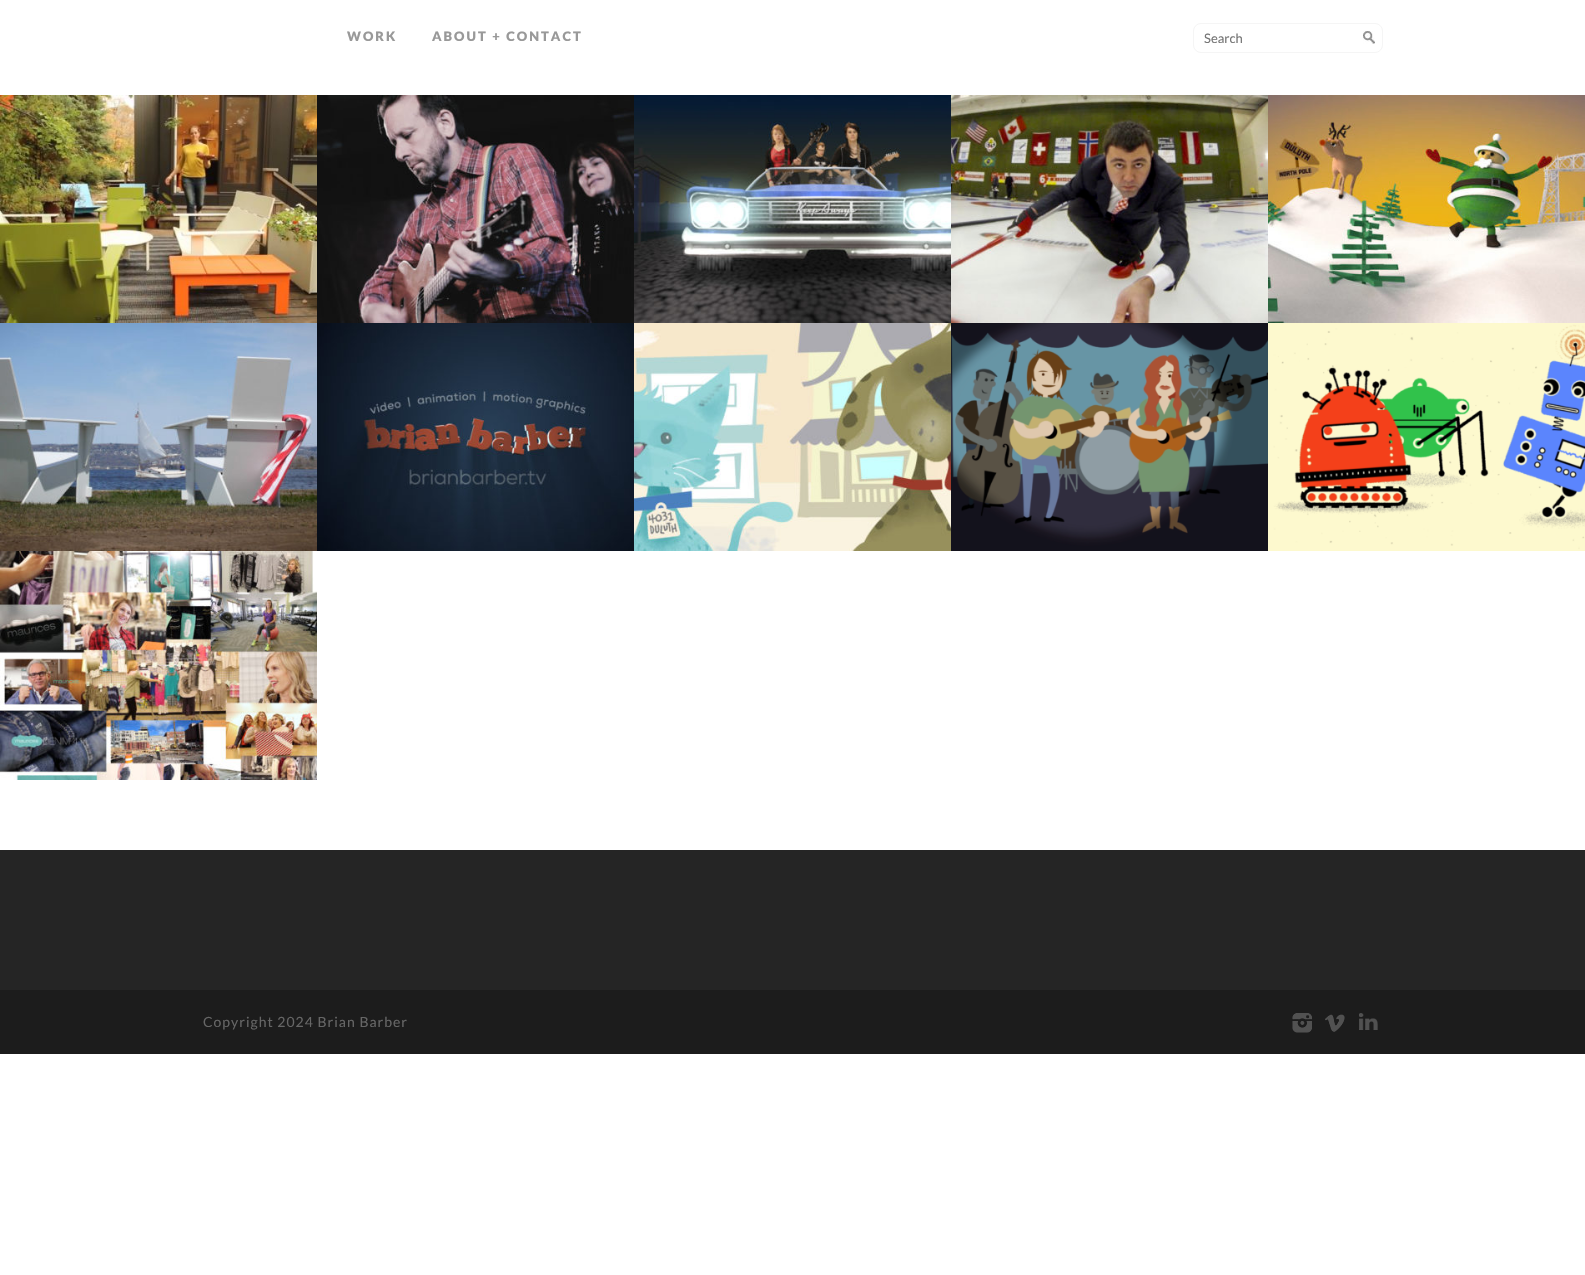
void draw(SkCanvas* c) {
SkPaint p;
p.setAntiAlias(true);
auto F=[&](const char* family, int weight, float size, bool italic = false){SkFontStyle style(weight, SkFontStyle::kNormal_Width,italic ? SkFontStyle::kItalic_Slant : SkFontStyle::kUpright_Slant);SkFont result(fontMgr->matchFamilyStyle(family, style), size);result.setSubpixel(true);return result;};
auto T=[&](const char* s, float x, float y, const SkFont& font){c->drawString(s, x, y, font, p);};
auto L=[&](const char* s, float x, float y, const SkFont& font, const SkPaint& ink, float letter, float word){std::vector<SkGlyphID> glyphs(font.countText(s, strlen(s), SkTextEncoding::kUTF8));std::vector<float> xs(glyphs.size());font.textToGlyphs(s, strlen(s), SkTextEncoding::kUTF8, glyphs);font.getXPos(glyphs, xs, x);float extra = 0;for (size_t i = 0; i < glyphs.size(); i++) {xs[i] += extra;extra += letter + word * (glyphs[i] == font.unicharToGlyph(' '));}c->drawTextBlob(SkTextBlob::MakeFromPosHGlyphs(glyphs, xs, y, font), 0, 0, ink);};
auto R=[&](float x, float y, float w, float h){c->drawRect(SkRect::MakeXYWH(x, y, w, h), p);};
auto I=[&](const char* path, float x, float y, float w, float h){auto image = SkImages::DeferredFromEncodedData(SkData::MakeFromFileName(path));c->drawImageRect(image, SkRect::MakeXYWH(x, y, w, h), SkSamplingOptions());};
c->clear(0xffffffff);
auto f1 = F("Lato",900,13);
p.setColor(0xff999999);
L("WORK",347,41,f1,p,2,0);
L("ABOUT + CONTACT",432,41,f1,p,2,0);
p.setStroke(true);
p.setStrokeWidth(1);
p.setColor(0xfff5f5f5);
c->drawRoundRect(SkRect::MakeXYWH(1193.5,23.5,189,29),7.5,7.5,p);
auto f2 = F("Lato",400,13);
p.setStroke(false);
p.setColor(0xff757575);
T("Search",1204,43,f2);
I("1.png",1363,31,12,13);
I("2.png",0,95,317,228);
I("3.png",317,95,317,228);
I("4.png",634,95,317,228);
I("5.png",951,95,317,228);
I("6.png",1268,95,317,228);
I("7.png",0,323,317,228);
I("8.png",317,323,317,228);
I("9.png",634,323,317,228);
I("10.png",951,323,317,228);
I("11.png",1268,323,317,228);
I("12.png",0,551,317,229);
p.setColor(0xff252525);
R(0,850,1585,140);
p.setColor(0xff1c1c1c);
R(0,990,1585,64);
auto f3 = F("Lato",400,14);
p.setColor(0xff666666);
L("Copyright 2024 Brian Barber",203,1027,f3,p,1,0);
I("13.png",1292,1013,20,20);
I("14.png",1325,1014,20,18);
I("15.png",1359,1013,19,17);
}
